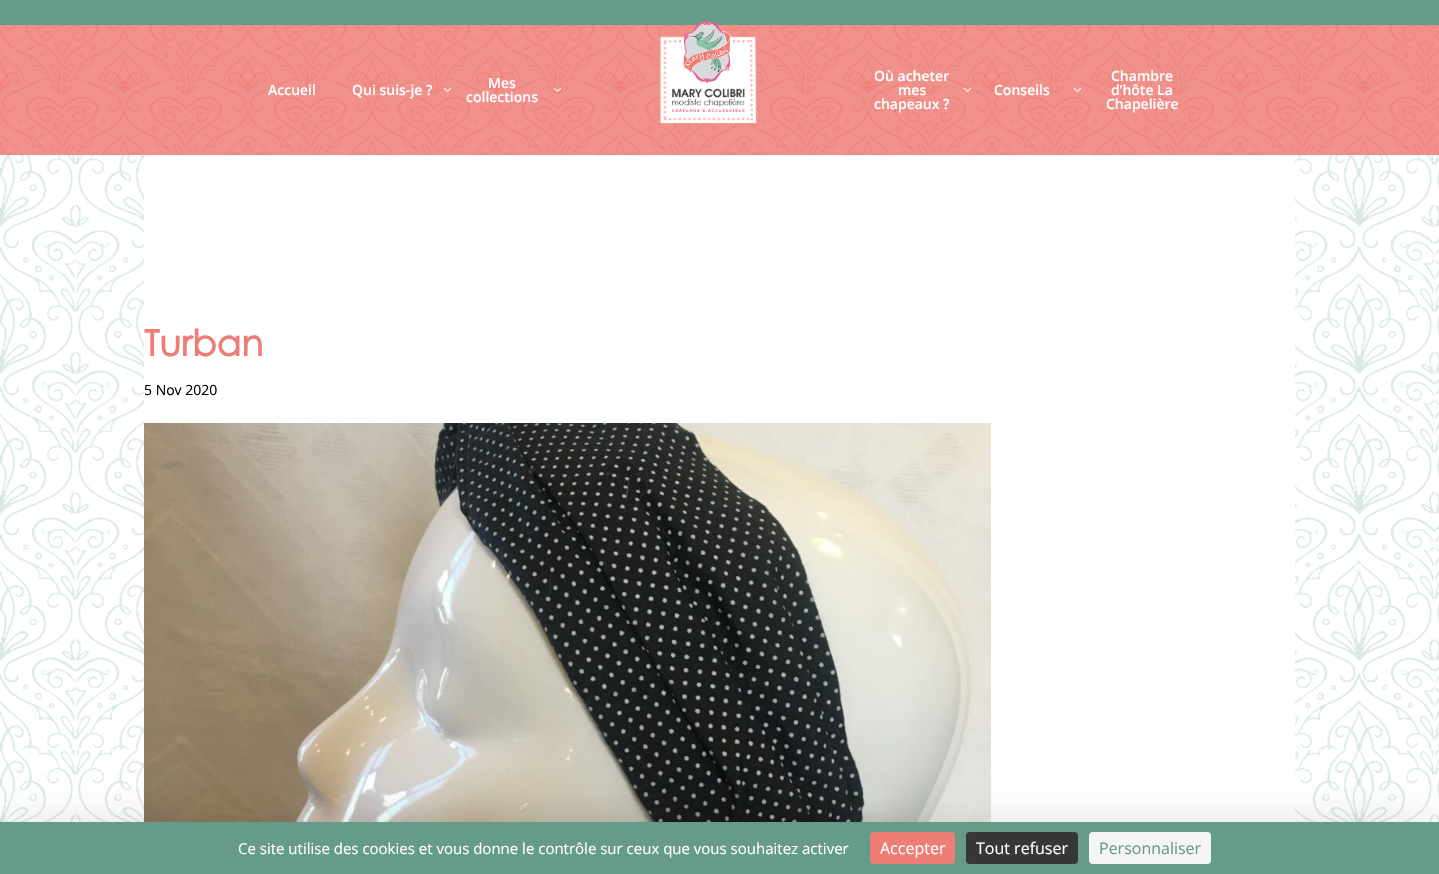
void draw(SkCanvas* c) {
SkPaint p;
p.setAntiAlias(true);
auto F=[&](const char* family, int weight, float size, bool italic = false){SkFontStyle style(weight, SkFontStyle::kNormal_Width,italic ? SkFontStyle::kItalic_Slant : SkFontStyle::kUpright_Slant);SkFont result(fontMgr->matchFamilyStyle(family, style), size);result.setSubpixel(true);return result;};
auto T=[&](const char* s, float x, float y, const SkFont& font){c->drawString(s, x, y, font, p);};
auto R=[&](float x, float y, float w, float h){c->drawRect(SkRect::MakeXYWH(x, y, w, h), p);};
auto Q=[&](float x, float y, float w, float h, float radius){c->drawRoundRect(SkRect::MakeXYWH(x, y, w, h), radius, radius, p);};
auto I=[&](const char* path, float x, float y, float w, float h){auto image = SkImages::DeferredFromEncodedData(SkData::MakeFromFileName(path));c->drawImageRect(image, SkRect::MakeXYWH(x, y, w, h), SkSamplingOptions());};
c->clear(0xffffffff);
p.setColor(0xfffae1df);
R(0,25,1439,130);
I("1.png",0,25,1439,130);
p.setColor(0xff669b87);
R(0,0,1439,25);
p.setColor(0xcced7d76);
R(0,25,1439,130);
auto f1 = F("Open Sans",600,14);
p.setColor(0xffffffff);
T("Accueil",268,95,f1);
T("Qui suis-je ?",352,95,f1);
I("2.png",443,87,9,5);
T("Mes",488,88,f1);
I("3.png",553,87,9,5);
T("collections",466,102,f1);
I("4.png",660,20,97,104);
T("Où acheter",874,81,f1);
T("mes",898,95,f1);
I("5.png",963,87,9,5);
T("chapeaux ?",874,109,f1);
T("Conseils",994,95,f1);
I("6.png",1073,87,9,5);
T("Chambre",1111,81,f1);
T("d’hôte La",1111,95,f1);
T("Chapelière",1106,109,f1);
I("7.png",0,155,1439,667);
R(144,155,1151,667);
auto f2 = F("Century Gothic",700,36);
p.setColor(0xffed7d76);
T("Turban",144,356,f2);
auto f3 = F("Open Sans",400,14);
p.setColor(0xff000000);
T("5 Nov 2020",144,395,f3);
I("8.png",144,423,847,399);
p.setColor(0x40000000);
p.setMaskFilter(SkMaskFilter::MakeBlur(kNormal_SkBlurStyle, 30));
c->drawRect(SkRect::MakeXYWH(0,842,1439,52),p);
p.setMaskFilter(nullptr);
p.setColor(0xff669b87);
R(0,822,1439,52);
auto f4 = F("Open Sans",400,15);
p.setColor(0xffffffff);
T("Ce site utilise des cookies et vous donne le contrôle sur ceux que vous souhaitez activer",238,854,f4);
p.setColor(0xffed7e76);
Q(870,832,85,32,4);
auto f5 = F("Open Sans",400,16);
p.setColor(0xffffffff);
T("Accepter",880,854,f5);
p.setColor(0xff363835);
Q(966,832,112,32,4);
p.setColor(0xffffffff);
T("Tout refuser",976,854,f5);
p.setColor(0xfff5f5f5);
Q(1089,832,122,32,4);
p.setColor(0xff669b87);
T("Personnaliser",1099,854,f5);
}
